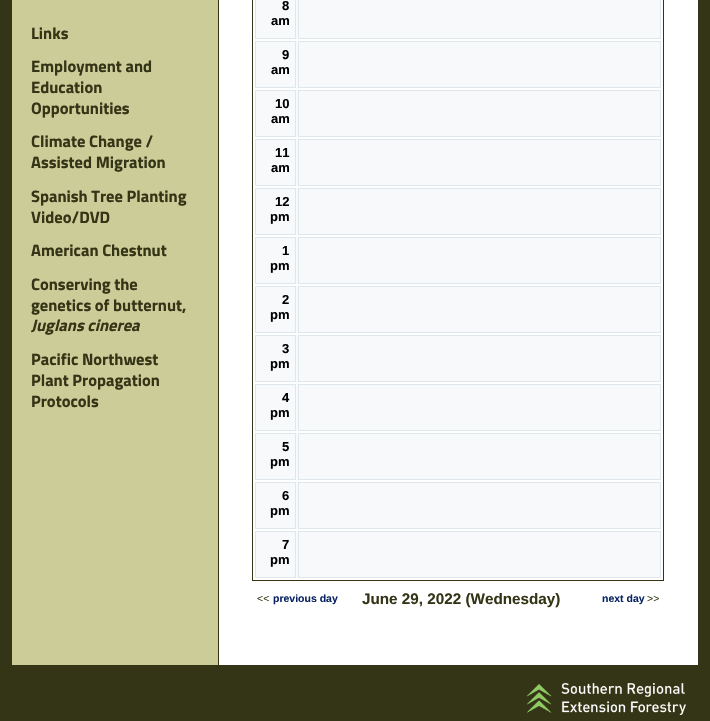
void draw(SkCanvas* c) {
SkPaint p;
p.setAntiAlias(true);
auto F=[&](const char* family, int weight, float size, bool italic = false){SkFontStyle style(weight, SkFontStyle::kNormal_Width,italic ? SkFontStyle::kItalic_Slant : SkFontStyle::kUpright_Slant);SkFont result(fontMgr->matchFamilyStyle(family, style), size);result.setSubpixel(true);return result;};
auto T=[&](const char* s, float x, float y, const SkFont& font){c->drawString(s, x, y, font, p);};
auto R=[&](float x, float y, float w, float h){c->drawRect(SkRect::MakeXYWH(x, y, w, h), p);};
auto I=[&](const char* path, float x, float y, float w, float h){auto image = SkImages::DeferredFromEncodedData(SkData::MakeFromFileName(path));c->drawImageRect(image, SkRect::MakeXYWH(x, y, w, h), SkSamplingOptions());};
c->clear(0xff343416);
p.setColor(0xffcccc99);
R(12,0,206,665);
auto f1 = F("Titillium Web",700,16.5);
p.setColor(0xff343416);
T("Links",31,39,f1);
T("Employment and",31,72,f1);
T("Education",31,93,f1);
T("Opportunities",31,114,f1);
T("Climate Change /",31,147,f1);
T("Assisted Migration",31,168,f1);
T("Spanish Tree Planting",31,202,f1);
T("Video/DVD",31,223,f1);
T("American Chestnut",31,256,f1);
T("Conserving the",31,290,f1);
T("genetics of butternut,",31,311,f1);
auto f2 = F("Titillium Web",700,16.5,true);
T("Juglans cinerea",31,331,f2);
T("Pacific Northwest",31,365,f1);
T("Plant Propagation",31,386,f1);
T("Protocols",31,407,f1);
p.setColor(0xffffffff);
R(219,0,479,665);
p.setStroke(true);
p.setStrokeWidth(1);
p.setColor(0xff343414);
c->drawRect(SkRect::MakeXYWH(252.5,-.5,411,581),p);
p.setStroke(false);
p.setColor(0xfff7f9fa);
R(256,0,404,39);
p.setStroke(true);
p.setColor(0xffdee7ec);
c->drawRect(SkRect::MakeXYWH(255.5,-.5,40,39),p);
auto f3 = F("Liberation Sans",700,13);
p.setStroke(false);
p.setColor(0xff000000);
T("8",282,10,f3);
T("am",271,25,f3);
p.setStroke(true);
p.setColor(0xffdee7ec);
c->drawRect(SkRect::MakeXYWH(298.5,-.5,362,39),p);
p.setStroke(false);
p.setColor(0xfff7f9fa);
R(256,41,404,47);
p.setStroke(true);
p.setColor(0xffdee7ec);
c->drawRect(SkRect::MakeXYWH(255.5,41.5,40,46),p);
p.setStroke(false);
p.setColor(0xff000000);
T("9",282,59,f3);
T("am",271,74,f3);
p.setStroke(true);
p.setColor(0xffdee7ec);
c->drawRect(SkRect::MakeXYWH(298.5,41.5,362,46),p);
p.setStroke(false);
p.setColor(0xfff7f9fa);
R(256,90,404,47);
p.setStroke(true);
p.setColor(0xffdee7ec);
c->drawRect(SkRect::MakeXYWH(255.5,90.5,40,46),p);
p.setStroke(false);
p.setColor(0xff000000);
T("10",275,108,f3);
T("am",271,123,f3);
p.setStroke(true);
p.setColor(0xffdee7ec);
c->drawRect(SkRect::MakeXYWH(298.5,90.5,362,46),p);
p.setStroke(false);
p.setColor(0xfff7f9fa);
R(256,139,404,47);
p.setStroke(true);
p.setColor(0xffdee7ec);
c->drawRect(SkRect::MakeXYWH(255.5,139.5,40,46),p);
p.setStroke(false);
p.setColor(0xff000000);
T("11",275,157,f3);
T("am",271,172,f3);
p.setStroke(true);
p.setColor(0xffdee7ec);
c->drawRect(SkRect::MakeXYWH(298.5,139.5,362,46),p);
p.setStroke(false);
p.setColor(0xfff7f9fa);
R(256,188,404,47);
p.setStroke(true);
p.setColor(0xffdee7ec);
c->drawRect(SkRect::MakeXYWH(255.5,188.5,40,46),p);
p.setStroke(false);
p.setColor(0xff000000);
T("12",275,206,f3);
T("pm",270,221,f3);
p.setStroke(true);
p.setColor(0xffdee7ec);
c->drawRect(SkRect::MakeXYWH(298.5,188.5,362,46),p);
p.setStroke(false);
p.setColor(0xfff7f9fa);
R(256,237,404,47);
p.setStroke(true);
p.setColor(0xffdee7ec);
c->drawRect(SkRect::MakeXYWH(255.5,237.5,40,46),p);
p.setStroke(false);
p.setColor(0xff000000);
T("1",282,255,f3);
T("pm",270,270,f3);
p.setStroke(true);
p.setColor(0xffdee7ec);
c->drawRect(SkRect::MakeXYWH(298.5,237.5,362,46),p);
p.setStroke(false);
p.setColor(0xfff7f9fa);
R(256,286,404,47);
p.setStroke(true);
p.setColor(0xffdee7ec);
c->drawRect(SkRect::MakeXYWH(255.5,286.5,40,46),p);
p.setStroke(false);
p.setColor(0xff000000);
T("2",282,304,f3);
T("pm",270,319,f3);
p.setStroke(true);
p.setColor(0xffdee7ec);
c->drawRect(SkRect::MakeXYWH(298.5,286.5,362,46),p);
p.setStroke(false);
p.setColor(0xfff7f9fa);
R(256,335,404,47);
p.setStroke(true);
p.setColor(0xffdee7ec);
c->drawRect(SkRect::MakeXYWH(255.5,335.5,40,46),p);
p.setStroke(false);
p.setColor(0xff000000);
T("3",282,353,f3);
T("pm",270,368,f3);
p.setStroke(true);
p.setColor(0xffdee7ec);
c->drawRect(SkRect::MakeXYWH(298.5,335.5,362,46),p);
p.setStroke(false);
p.setColor(0xfff7f9fa);
R(256,384,404,47);
p.setStroke(true);
p.setColor(0xffdee7ec);
c->drawRect(SkRect::MakeXYWH(255.5,384.5,40,46),p);
p.setStroke(false);
p.setColor(0xff000000);
T("4",282,402,f3);
T("pm",270,417,f3);
p.setStroke(true);
p.setColor(0xffdee7ec);
c->drawRect(SkRect::MakeXYWH(298.5,384.5,362,46),p);
p.setStroke(false);
p.setColor(0xfff7f9fa);
R(256,433,404,47);
p.setStroke(true);
p.setColor(0xffdee7ec);
c->drawRect(SkRect::MakeXYWH(255.5,433.5,40,46),p);
p.setStroke(false);
p.setColor(0xff000000);
T("5",282,451,f3);
T("pm",270,466,f3);
p.setStroke(true);
p.setColor(0xffdee7ec);
c->drawRect(SkRect::MakeXYWH(298.5,433.5,362,46),p);
p.setStroke(false);
p.setColor(0xfff7f9fa);
R(256,482,404,47);
p.setStroke(true);
p.setColor(0xffdee7ec);
c->drawRect(SkRect::MakeXYWH(255.5,482.5,40,46),p);
p.setStroke(false);
p.setColor(0xff000000);
T("6",282,500,f3);
T("pm",270,515,f3);
p.setStroke(true);
p.setColor(0xffdee7ec);
c->drawRect(SkRect::MakeXYWH(298.5,482.5,362,46),p);
p.setStroke(false);
p.setColor(0xfff7f9fa);
R(256,531,404,47);
p.setStroke(true);
p.setColor(0xffdee7ec);
c->drawRect(SkRect::MakeXYWH(255.5,531.5,40,46),p);
p.setStroke(false);
p.setColor(0xff000000);
T("7",282,549,f3);
T("pm",270,564,f3);
p.setStroke(true);
p.setColor(0xffdee7ec);
c->drawRect(SkRect::MakeXYWH(298.5,531.5,362,46),p);
auto f4 = F("Liberation Sans",400,10.5);
p.setStroke(false);
p.setColor(0xff343416);
T("<<",257,602,f4);
auto f5 = F("Liberation Sans",700,10.5);
p.setColor(0xff0a2463);
T("previous day",273,602,f5);
auto f6 = F("Liberation Sans",700,15.25);
p.setColor(0xff343416);
T("June 29, 2022 (Wednesday)",362,604,f6);
p.setColor(0xff0a2463);
T("next day",602,602,f5);
p.setColor(0xff343416);
T(">>",647,602,f4);
I("1.png",527,683,159,32);
}
